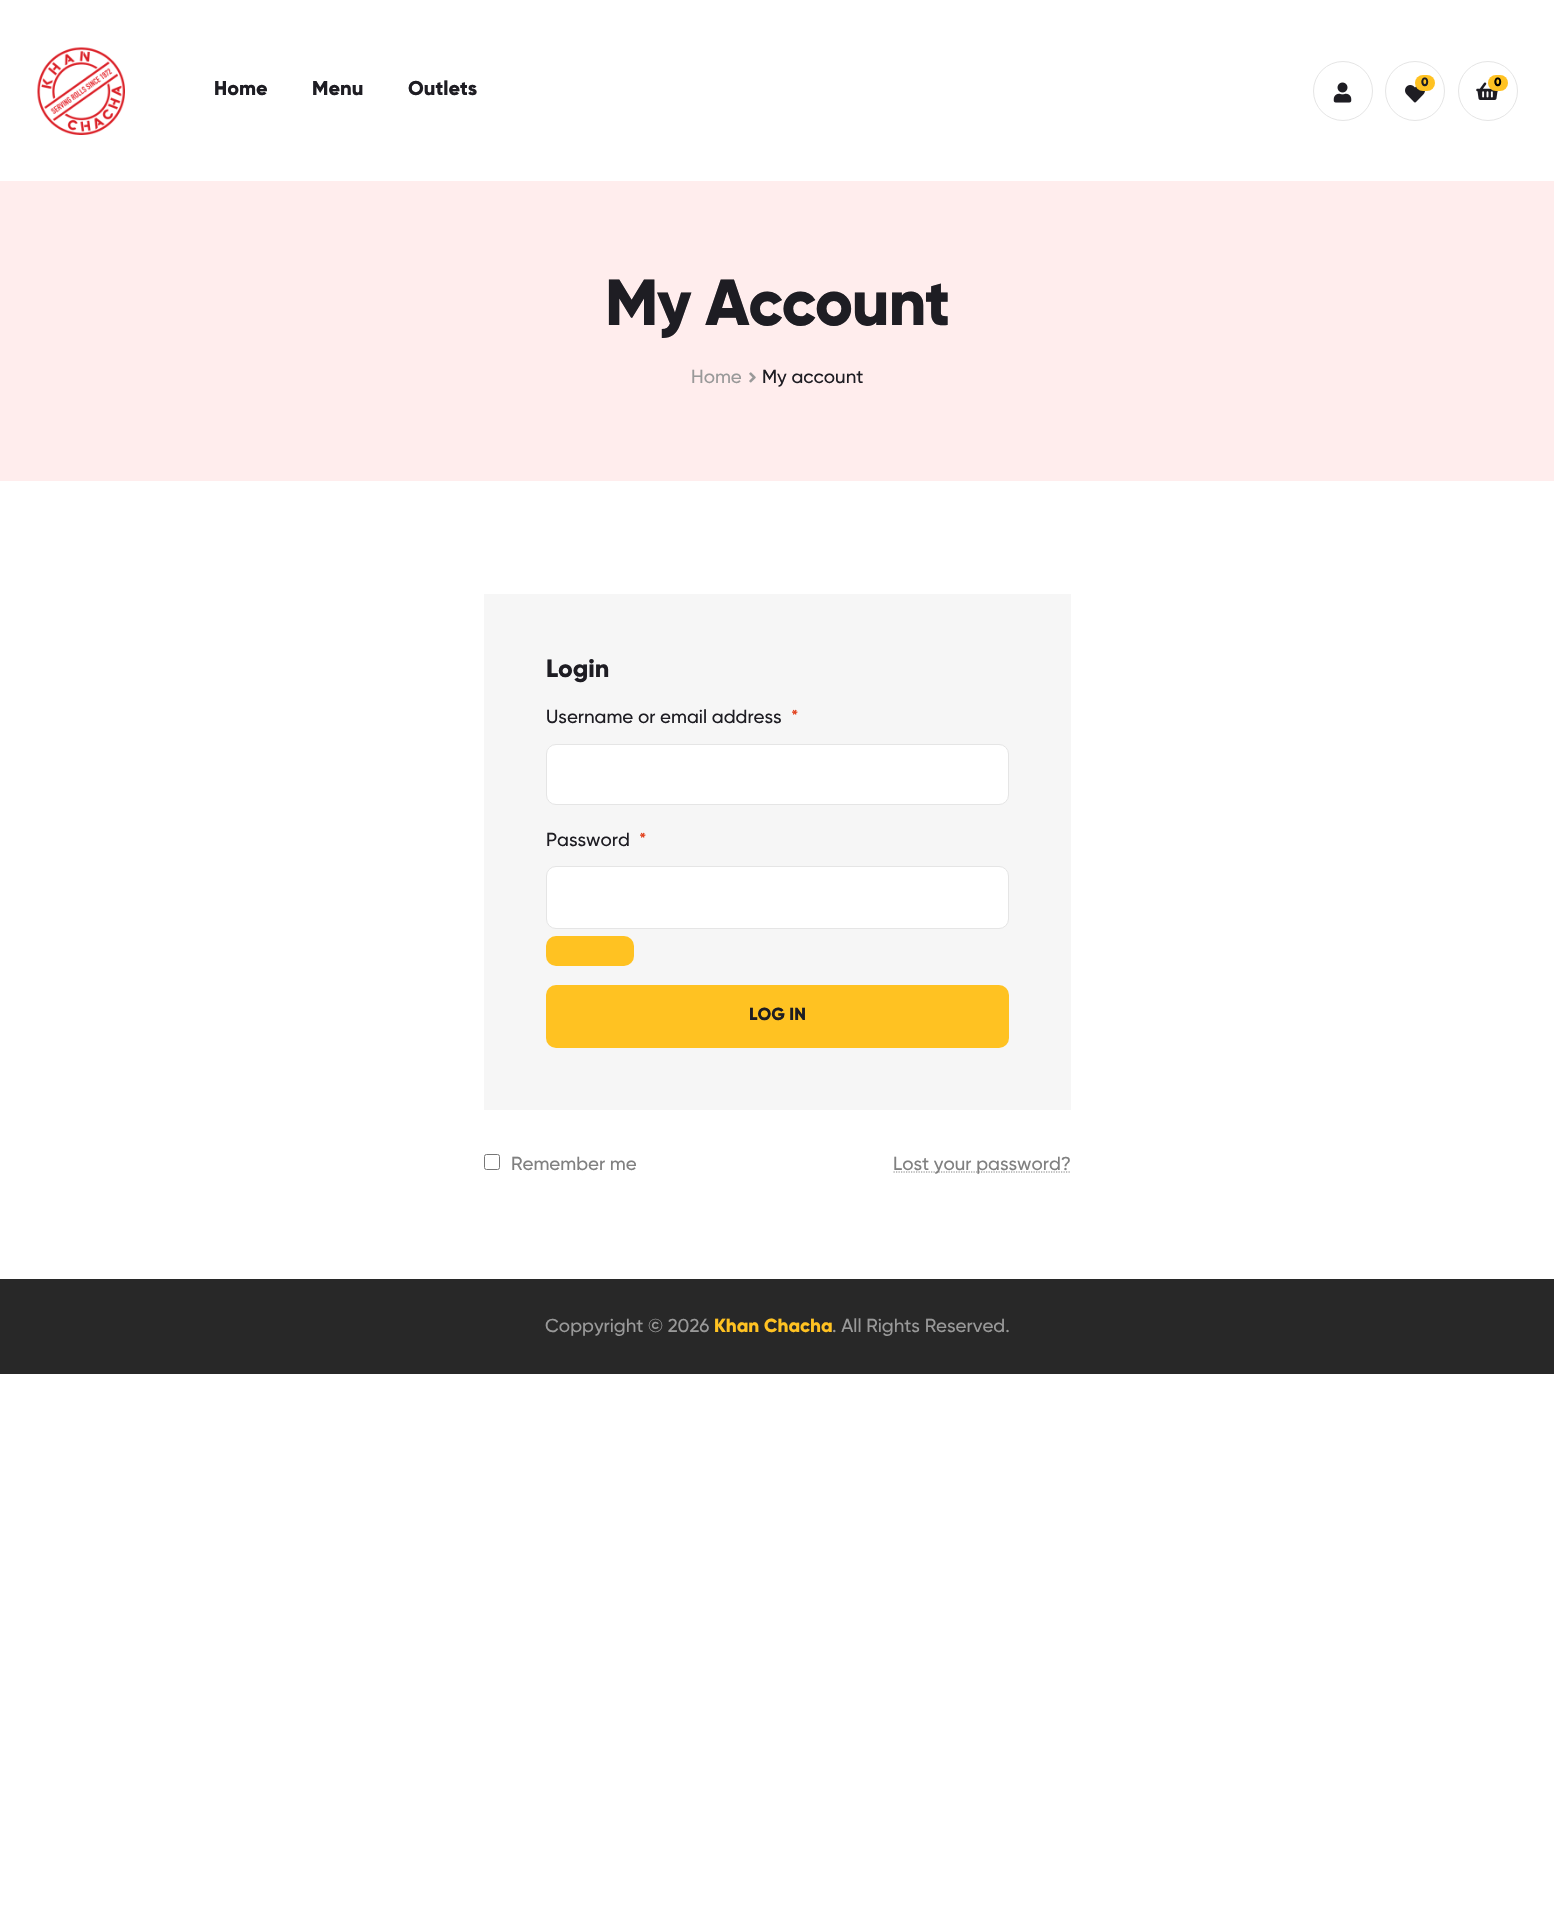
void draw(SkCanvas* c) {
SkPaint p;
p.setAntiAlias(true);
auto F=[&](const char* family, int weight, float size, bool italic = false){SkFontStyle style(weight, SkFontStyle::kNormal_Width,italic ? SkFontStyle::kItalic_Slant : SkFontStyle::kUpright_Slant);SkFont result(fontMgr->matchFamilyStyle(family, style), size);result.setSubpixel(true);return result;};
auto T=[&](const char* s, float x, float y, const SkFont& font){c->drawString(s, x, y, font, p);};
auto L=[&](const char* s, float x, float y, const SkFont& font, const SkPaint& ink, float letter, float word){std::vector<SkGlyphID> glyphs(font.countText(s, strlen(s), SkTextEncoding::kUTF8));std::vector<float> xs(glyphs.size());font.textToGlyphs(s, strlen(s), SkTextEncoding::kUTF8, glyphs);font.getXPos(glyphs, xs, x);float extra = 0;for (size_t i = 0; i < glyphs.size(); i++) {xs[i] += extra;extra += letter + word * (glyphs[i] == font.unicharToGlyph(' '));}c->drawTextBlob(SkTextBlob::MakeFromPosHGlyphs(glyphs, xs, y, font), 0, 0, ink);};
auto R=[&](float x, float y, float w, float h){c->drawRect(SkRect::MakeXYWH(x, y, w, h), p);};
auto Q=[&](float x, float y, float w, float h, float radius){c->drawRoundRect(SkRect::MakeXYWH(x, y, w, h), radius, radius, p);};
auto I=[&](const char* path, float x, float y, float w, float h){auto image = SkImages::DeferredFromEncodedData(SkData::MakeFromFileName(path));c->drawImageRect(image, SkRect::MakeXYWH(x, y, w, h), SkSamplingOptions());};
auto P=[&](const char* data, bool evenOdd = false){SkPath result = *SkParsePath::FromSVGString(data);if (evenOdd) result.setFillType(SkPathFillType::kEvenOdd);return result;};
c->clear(0xffffffff);
I("1.png",37,47,88,88);
auto f1 = F("Gilroy",800,20);
p.setColor(0xff1e1d23);
T("Home",214,95,f1);
T("Menu",312,95,f1);
T("Outlets",408,95,f1);
p.setStroke(true);
p.setStrokeWidth(1);
p.setColor(0xffe5e5e5);
c->drawCircle(1343,91,29.5,p);
I("2.png",1333,82,19,21);
c->drawCircle(1415,91,29.5,p);
I("3.png",1405,85,20,18);
p.setStroke(false);
p.setColor(0xffffc222);
Q(1415,75,20,16,8);
auto f2 = F("Gilroy",800,12);
p.setColor(0xff1e1d23);
T("0",1421,86,f2);
p.setStroke(true);
p.setColor(0xffe5e5e5);
c->drawCircle(1488,91,29.5,p);
I("4.png",1476,82,23,18);
p.setStroke(false);
p.setColor(0xffffc222);
Q(1488,75,20,16,8);
p.setColor(0xff000000);
T("0",1494,86,f2);
p.setColor(0xffffeded);
R(0,181,1554,300);
auto f3 = F("Gilroy",800,65);
p.setColor(0xff1e1d23);
L("My Account",605,325,f3,p,-1.25,0);
auto f4 = F("Gilroy",500,18.75);
p.setColor(0xff999999);
T("Home",691,383,f4);
I("5.png",749,372,7,11);
p.setColor(0xff1e1d23);
T("My account",762,383,f4);
p.setColor(0xfff6f6f6);
R(484,594,587,516);
auto f5 = F("Gilroy",800,25);
p.setColor(0xff1e1d23);
T("Login",546,677,f5);
T("Username or email address",546,723,f4);
p.setColor(0xffe2401c);
T("*",791,723,f4);
p.setColor(0xffffffff);
c->drawRoundRect(SkRect::MakeXYWH(546.5,744.5,462,60),9.5,9.5,p);
p.setStroke(true);
p.setColor(0xffe5e5e5);
c->drawRoundRect(SkRect::MakeXYWH(546.5,744.5,462,60),9.5,9.5,p);
p.setStroke(false);
p.setColor(0xff1e1d23);
T("Password",546,846,f4);
p.setColor(0xffe2401c);
T("*",639,846,f4);
p.setColor(0xffffffff);
c->drawRoundRect(SkRect::MakeXYWH(546.5,866.5,462,62),9.5,9.5,p);
p.setStroke(true);
p.setColor(0xffe5e5e5);
c->drawRoundRect(SkRect::MakeXYWH(546.5,866.5,462,62),9.5,9.5,p);
p.setStroke(false);
p.setColor(0xffffc222);
Q(546,936,88,30,10);
Q(546,985,463,63,10);
auto f6 = F("Gilroy",800,17.5);
p.setColor(0xff1e1d23);
T("LOG IN",749,1020,f6);
p.setStroke(true);
p.setColor(0xff767676);
c->drawRoundRect(SkRect::MakeXYWH(484.5,1154.5,15,15),2,2,p);
p.setStroke(false);
p.setColor(0xff808080);
T("Remember me",511,1170,f4);
p.setStroke(true);
p.setStrokeWidth(1.2);
p.setPathEffect(SkDashPathEffect::Make({{1.25f,1.25f}}, 0));
c->drawPath(P("M893.5 1172h177.5"),p);
p.setPathEffect(nullptr);
p.setStroke(false);
T("Lost your password?",893,1170,f4);
p.setColor(0xff282828);
R(0,1279,1554,95);
p.setColor(0xff999999);
T("Coppyright © 2026",545,1332,f4);
auto f7 = F("Gilroy",800,18.75);
p.setColor(0xffffc222);
T("Khan Chacha",714,1332,f7);
p.setColor(0xff999999);
T(". All Rights Reserved.",832,1332,f4);
}
